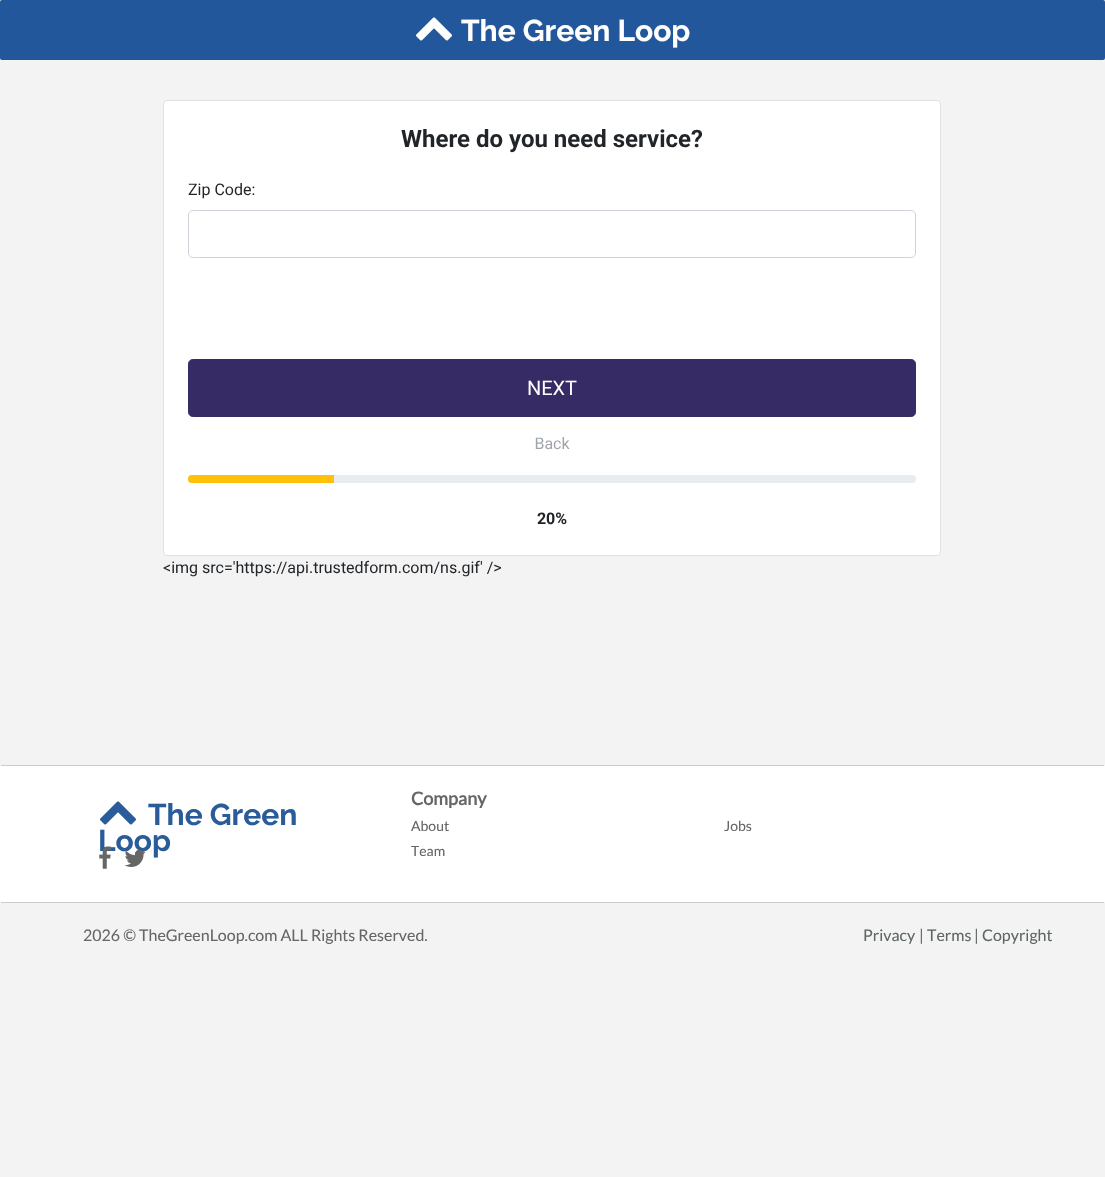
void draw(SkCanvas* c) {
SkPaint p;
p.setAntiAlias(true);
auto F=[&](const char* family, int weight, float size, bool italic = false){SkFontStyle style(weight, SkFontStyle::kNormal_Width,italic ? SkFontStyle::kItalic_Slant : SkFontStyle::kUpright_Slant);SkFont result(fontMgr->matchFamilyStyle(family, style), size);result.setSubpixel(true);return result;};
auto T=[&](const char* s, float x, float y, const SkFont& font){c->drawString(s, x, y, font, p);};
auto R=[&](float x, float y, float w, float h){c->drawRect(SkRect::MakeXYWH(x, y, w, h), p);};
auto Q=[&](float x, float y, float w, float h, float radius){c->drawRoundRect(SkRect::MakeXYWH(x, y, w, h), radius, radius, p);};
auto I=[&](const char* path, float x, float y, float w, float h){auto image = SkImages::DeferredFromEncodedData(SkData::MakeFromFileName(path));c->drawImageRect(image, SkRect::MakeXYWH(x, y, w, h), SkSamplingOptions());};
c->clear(0xfff3f3f3);
p.setColor(0xff22579b);
Q(0,0,1105,60,2);
I("1.png",416,17,36,24);
auto f1 = F("Raleway",100,30);
p.setColor(0xffffffff);
T("The Green Loop",461,41,f1);
I("2.png",163,100,778,477);
Q(0,765,1105,138,2);
p.setColor(0xffcccccc);
R(1,765,1103,1);
R(1,902,1103,1);
I("3.png",100,801,36,24);
p.setColor(0xff2a5c99);
T("The Green",148,825,f1);
T("Loop",98,851,f1);
I("4.png",99,846,12,23);
I("5.png",124,849,22,18);
auto f2 = F("Lato",700,18);
p.setColor(0xff666666);
T("Company",411,805,f2);
auto f3 = F("Lato",400,14);
T("About",411,831,f3);
T("Team",411,856,f3);
T("Jobs",724,831,f3);
auto f4 = F("Lato",400,16);
T("2026 © TheGreenLoop.com ALL Rights Reserved.",83,941,f4);
p.setColor(0xff5e6666);
T("Privacy",863,941,f4);
p.setColor(0xff666666);
T("|",919,941,f4);
p.setColor(0xff5e6666);
T("Terms",927,941,f4);
p.setColor(0xff666666);
T("|",974,941,f4);
p.setColor(0xff5e6666);
T("Copyright",982,941,f4);
}
